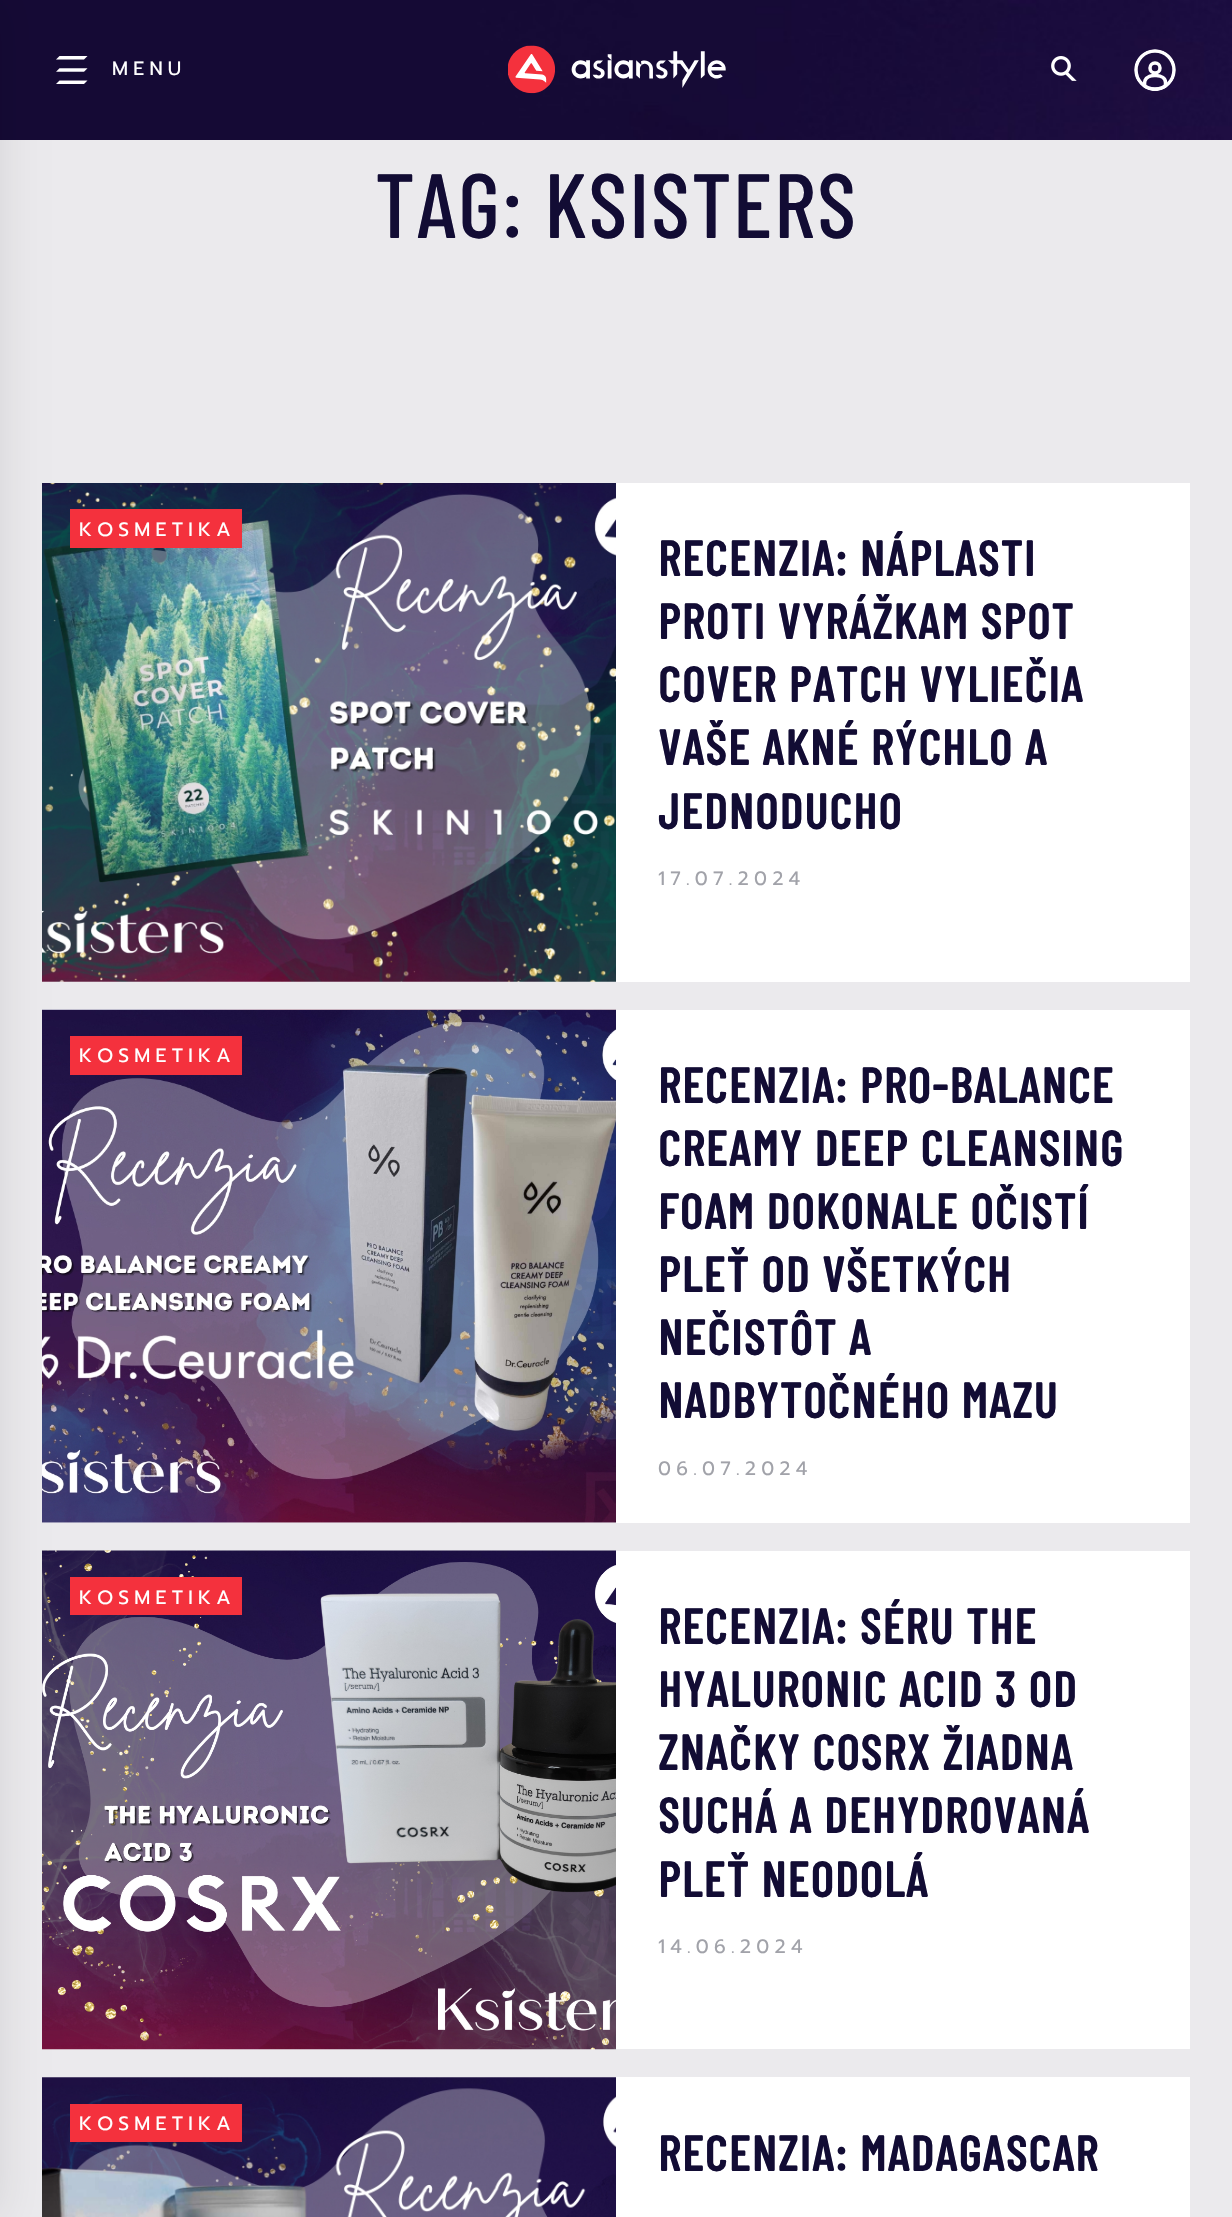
void draw(SkCanvas* c) {
SkPaint p;
p.setAntiAlias(true);
auto F=[&](const char* family, int weight, float size, bool italic = false){SkFontStyle style(weight, SkFontStyle::kNormal_Width,italic ? SkFontStyle::kItalic_Slant : SkFontStyle::kUpright_Slant);SkFont result(fontMgr->matchFamilyStyle(family, style), size);result.setSubpixel(true);return result;};
auto L=[&](const char* s, float x, float y, const SkFont& font, const SkPaint& ink, float letter, float word){std::vector<SkGlyphID> glyphs(font.countText(s, strlen(s), SkTextEncoding::kUTF8));std::vector<float> xs(glyphs.size());font.textToGlyphs(s, strlen(s), SkTextEncoding::kUTF8, glyphs);font.getXPos(glyphs, xs, x);float extra = 0;for (size_t i = 0; i < glyphs.size(); i++) {xs[i] += extra;extra += letter + word * (glyphs[i] == font.unicharToGlyph(' '));}c->drawTextBlob(SkTextBlob::MakeFromPosHGlyphs(glyphs, xs, y, font), 0, 0, ink);};
auto R=[&](float x, float y, float w, float h){c->drawRect(SkRect::MakeXYWH(x, y, w, h), p);};
auto I=[&](const char* path, float x, float y, float w, float h){auto image = SkImages::DeferredFromEncodedData(SkData::MakeFromFileName(path));c->drawImageRect(image, SkRect::MakeXYWH(x, y, w, h), SkSamplingOptions());};
auto P=[&](const char* data, bool evenOdd = false){SkPath result = *SkParsePath::FromSVGString(data);if (evenOdd) result.setFillType(SkPathFillType::kEvenOdd);return result;};
c->clear(0xffebeaed);
I("1.png",0,0,1232,140);
I("2.png",56,56,32,28);
p.setColor(0xffffffff);
R(42,483,1148,499);
I("5.png",42,483,574,499);
R(42,1010,1148,513);
I("6.png",42,1009,574,514);
I("7.png",42,1550,574,500);
R(42,2077,1148,140);
I("8.png",42,2077,574,140);
p.setColor(0x1a000000);
p.setMaskFilter(SkMaskFilter::MakeBlur(kNormal_SkBlurStyle, 22));
c->drawRect(SkRect::MakeXYWH(-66,0,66,2217),p);
p.setMaskFilter(nullptr);
auto f1 = F("Prompt",400,19.25);
p.setColor(0xffffffff);
L("MENU",112,75,f1,p,5.25,0);
I("3.png",508,45,218,49);
I("4.png",1051,56,26,25);
c->save();
c->clipPath(P("M1155 49c11.5 0 21 9.5 21 21c0 11.5-9.5 21-21 21c-11.5 0-21-9.5-21-21c0-11.5 9.5-21 21-21z"),true);
p.setStroke(true);
p.setStrokeWidth(3.5);
c->drawCircle(1155,70,19,p);
p.setStrokeCap(SkPaint::kSquare_Cap);
c->drawPath(P("M1165.5 82.5c0-8.5-17.5-9.5-20.5-2c-.5 1.5-.5 3.5-.5 5.5c4.5 4.5 16.5 4.5 21 0z"),p);
c->restore();
p.setStrokeCap(SkPaint::kButt_Cap);
c->drawCircle(1155,68,5,p);
auto f2 = F("Barlow Condensed",500,91);
p.setStroke(false);
p.setColor(0xff120c34);
L("TAG: KSISTERS",375,238,f2,p,1.75,0);
p.setColor(0xfff4313d);
R(70,509,172,39);
p.setColor(0xffffffff);
L("KOSMETIKA",79,536,f1,p,5.25,0);
auto f3 = F("Barlow Condensed",700,49);
p.setColor(0xff120c34);
L("RECENZIA: NÁPLASTI",658,576,f3,p,1.75,0);
L("PROTI VYRÁŽKAM SPOT",658,639,f3,p,1.75,0);
L("COVER PATCH VYLIEČIA",658,702,f3,p,1.75,0);
L("VAŠE AKNÉ RÝCHLO A",658,765,f3,p,1.75,0);
L("JEDNODUCHO",658,829,f3,p,1.75,0);
p.setColor(0xffa1a2a9);
L("17.07.2024",658,885,f1,p,5.25,0);
p.setColor(0xfff4313d);
R(70,1036,172,39);
p.setColor(0xffffffff);
L("KOSMETIKA",79,1062,f1,p,5.25,0);
p.setColor(0xff120c34);
L("RECENZIA: PRO-BALANCE",658,1103,f3,p,1.75,0);
L("CREAMY DEEP CLEANSING",658,1166,f3,p,1.75,0);
L("FOAM DOKONALE OČISTÍ",658,1229,f3,p,1.75,0);
L("PLEŤ OD VŠETKÝCH",658,1292,f3,p,1.75,0);
L("NEČISTÔT A",658,1355,f3,p,1.75,0);
L("NADBYTOČNÉHO MAZU",658,1418,f3,p,1.75,0);
p.setColor(0xffa1a2a9);
L("06.07.2024",658,1475,f1,p,5.25,0);
p.setColor(0xffffffff);
R(616,1551,574,498);
p.setColor(0xfff4313d);
R(70,1577,172,38);
p.setColor(0xffffffff);
L("KOSMETIKA",79,1604,f1,p,5.25,0);
p.setColor(0xff120c34);
L("RECENZIA: SÉRU THE",658,1644,f3,p,1.75,0);
L("HYALURONIC ACID 3 OD",658,1707,f3,p,1.75,0);
L("ZNAČKY COSRX ŽIADNA",658,1770,f3,p,1.75,0);
L("SUCHÁ A DEHYDROVANÁ",658,1833,f3,p,1.75,0);
L("PLEŤ NEODOLÁ",658,1897,f3,p,1.75,0);
p.setColor(0xffa1a2a9);
L("14.06.2024",658,1953,f1,p,5.25,0);
p.setColor(0xfff4313d);
R(70,2104,172,38);
p.setColor(0xffffffff);
L("KOSMETIKA",79,2130,f1,p,5.25,0);
p.setColor(0xff120c34);
L("RECENZIA: MADAGASCAR",658,2171,f3,p,1.75,0);
}
